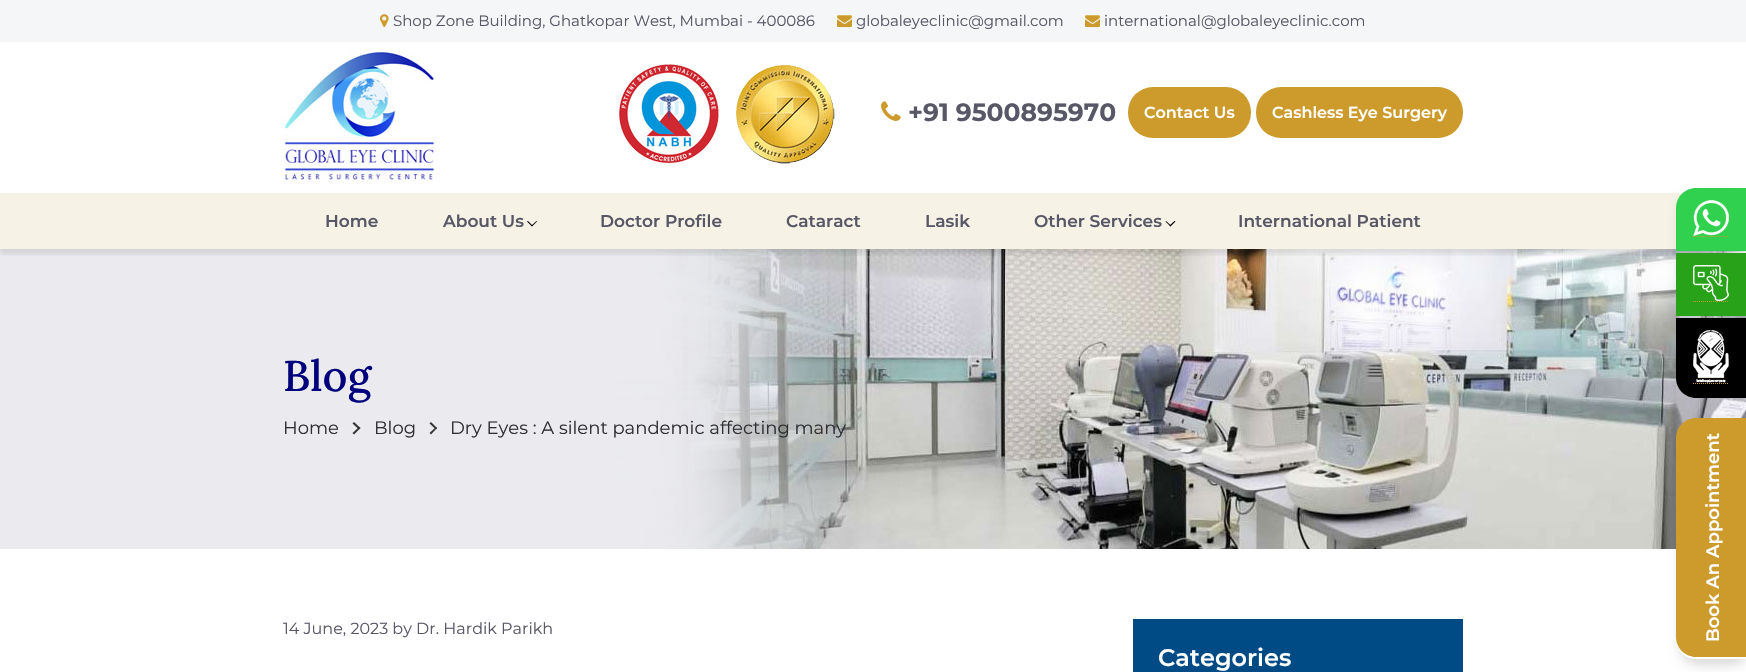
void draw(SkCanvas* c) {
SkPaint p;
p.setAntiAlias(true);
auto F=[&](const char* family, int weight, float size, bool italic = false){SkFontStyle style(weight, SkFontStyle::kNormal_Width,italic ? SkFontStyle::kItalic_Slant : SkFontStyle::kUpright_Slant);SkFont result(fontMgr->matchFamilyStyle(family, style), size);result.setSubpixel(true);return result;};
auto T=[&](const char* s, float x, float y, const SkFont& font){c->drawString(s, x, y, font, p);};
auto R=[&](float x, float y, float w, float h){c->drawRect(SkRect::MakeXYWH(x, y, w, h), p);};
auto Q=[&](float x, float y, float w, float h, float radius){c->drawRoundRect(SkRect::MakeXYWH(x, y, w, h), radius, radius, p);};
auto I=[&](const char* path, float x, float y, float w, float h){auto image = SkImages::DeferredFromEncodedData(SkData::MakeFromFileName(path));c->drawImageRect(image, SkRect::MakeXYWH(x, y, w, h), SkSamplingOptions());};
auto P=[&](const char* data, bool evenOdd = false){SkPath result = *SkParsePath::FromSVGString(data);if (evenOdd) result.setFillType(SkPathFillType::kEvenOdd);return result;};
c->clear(0xffffffff);
p.setColor(0xfff5f6f7);
R(0,0,1746,42);
I("1.png",380,14,9,13);
auto f1 = F("Montserrat",400,15);
p.setColor(0xff575766);
T("Shop Zone Building, Ghatkopar West, Mumbai - 400086",393,26,f1);
I("2.png",837,15,15,13);
T("globaleyeclinic@gmail.com",856,26,f1);
I("2.png",1085,15,15,13);
T("international@globaleyeclinic.com",1104,26,f1);
I("10.png",0,249,1746,300);
c->save();
c->clipRect(SkRect::MakeXYWH(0,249,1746,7));
p.setColor(0x1a000000);
p.setMaskFilter(SkMaskFilter::MakeBlur(kNormal_SkBlurStyle, 2.5));
c->drawRect(SkRect::MakeXYWH(0,47,1746,207),p);
p.setMaskFilter(nullptr);
c->restore();
p.setColor(0xfff6f2e6);
R(0,193,1683,56);
c->save();
c->clipPath(P("M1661 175h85v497h-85zm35 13h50v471h-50c-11 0-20-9-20-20v-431c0-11 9-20 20-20z",true),true);
p.setColor(0x26000000);
p.setMaskFilter(SkMaskFilter::MakeBlur(kNormal_SkBlurStyle, 6));
c->drawRoundRect(SkRect::MakeXYWH(1680,194,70,471),20,20,p);
p.setMaskFilter(nullptr);
c->restore();
p.setColor(0xff30d14e);
c->drawPath(P("M1696 188h50v63h-70v-43c0-11 9-20 20-20z"),p);
p.setStroke(true);
p.setStrokeWidth(1);
p.setColor(0xffcd9b2c);
p.setPathEffect(SkDashPathEffect::Make({{1,1}}, 0));
c->drawPath(P("M1693 236.5h36"),p);
p.setPathEffect(nullptr);
I("3.png",1693,200,36,36);
p.setStroke(false);
p.setColor(0xff28a219);
R(1676,253,70,63);
p.setStroke(true);
p.setColor(0xffcd9b2c);
p.setPathEffect(SkDashPathEffect::Make({{1,1}}, 0));
c->drawPath(P("M1693 301.5h36"),p);
p.setPathEffect(nullptr);
I("4.png",1693,265,36,36);
p.setStroke(false);
p.setColor(0xff000000);
c->drawPath(P("M1676 318h70v80h-50c-11 0-20-9-20-20z"),p);
p.setStroke(true);
p.setColor(0xffcd9b2c);
p.setPathEffect(SkDashPathEffect::Make({{1,1}}, 0));
c->drawPath(P("M1693 383.5h36"),p);
p.setPathEffect(nullptr);
I("5.png",1693,330,36,53);
p.setStroke(false);
c->drawPath(P("M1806 657h-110c-11 0-20-9-20-20v-199c0-11 9-20 20-20h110z"),p);
auto f2 = F("Montserrat",600,18);
p.setColor(0xffffffff);
c->save();
c->rotate(-90,1719,642);
T("Book An Appointment",1719,642,f2);
c->restore();
I("6.png",283,51,153,129);
I("7.png",619,64,100,100);
I("8.png",736,65,99,99);
I("9.png",881,101,20,20);
auto f3 = F("Montserrat",700,25);
p.setColor(0xff575766);
T("+91 9500895970",908,121,f3);
p.setColor(0xffcd9b2c);
Q(1128,87,123,51,25);
auto f4 = F("Montserrat",600,16);
p.setColor(0xffffffff);
T("Contact Us",1144,118,f4);
p.setColor(0xffcd9b2c);
Q(1256,87,207,51,25);
p.setColor(0xffffffff);
T("Cashless Eye Surgery",1272,118,f4);
auto f5 = F("Montserrat",600,17);
p.setColor(0xff575766);
T("Home",325,227,f5);
T("About Us",443,227,f5);
p.setColor(0xff000000);
c->drawPath(P("M536.5 221l.5 .5l-5 5l-.5-1z"),p);
c->drawPath(P("M528 221l4.5 4.5l-.5 1l-5-5z"),p);
p.setColor(0xff575766);
T("Doctor Profile",600,227,f5);
T("Cataract",786,227,f5);
T("Lasik",925,227,f5);
T("Other Services",1034,227,f5);
p.setColor(0xff000000);
c->drawPath(P("M1174.5 221l1 .5l-5 5l-1-1z"),p);
c->drawPath(P("M1166 221l5 4.5l-.5 1l-5-5z"),p);
p.setColor(0xff575766);
T("International Patient",1238,227,f5);
auto f6 = F("Lora",500,43);
p.setColor(0xff00007c);
T("Blog",283,391,f6);
auto f7 = F("Montserrat",400,18);
p.setColor(0xff2e2e33);
T("Home",283,434,f7);
p.setColor(0xff333333);
c->drawPath(P("M352.5 423.5l1.5-1.5l6.5 6l-1.5 1.5z"),p);
c->drawPath(P("M352.5 433l6.5-6l1.5 1l-6.5 6.5z"),p);
p.setColor(0xff2e2e33);
T("Blog",374,434,f7);
p.setColor(0xff333333);
c->drawPath(P("M429.5 423.5l1.5-1.5l6 6l-1 1.5z"),p);
c->drawPath(P("M429.5 433l6.5-6l1 1l-6 6.5z"),p);
p.setColor(0xff2e2e33);
T("Dry Eyes : A silent pandemic affecting many",450,434,f7);
auto f8 = F("Montserrat",400,16);
p.setColor(0xff575766);
T("14 June, 2023 by Dr. Hardik Parikh",283,634,f8);
p.setColor(0xff004a85);
R(1133,619,330,53);
auto f9 = F("Montserrat",600,24);
p.setColor(0xffffffff);
T("Categories",1158,666,f9);
}
